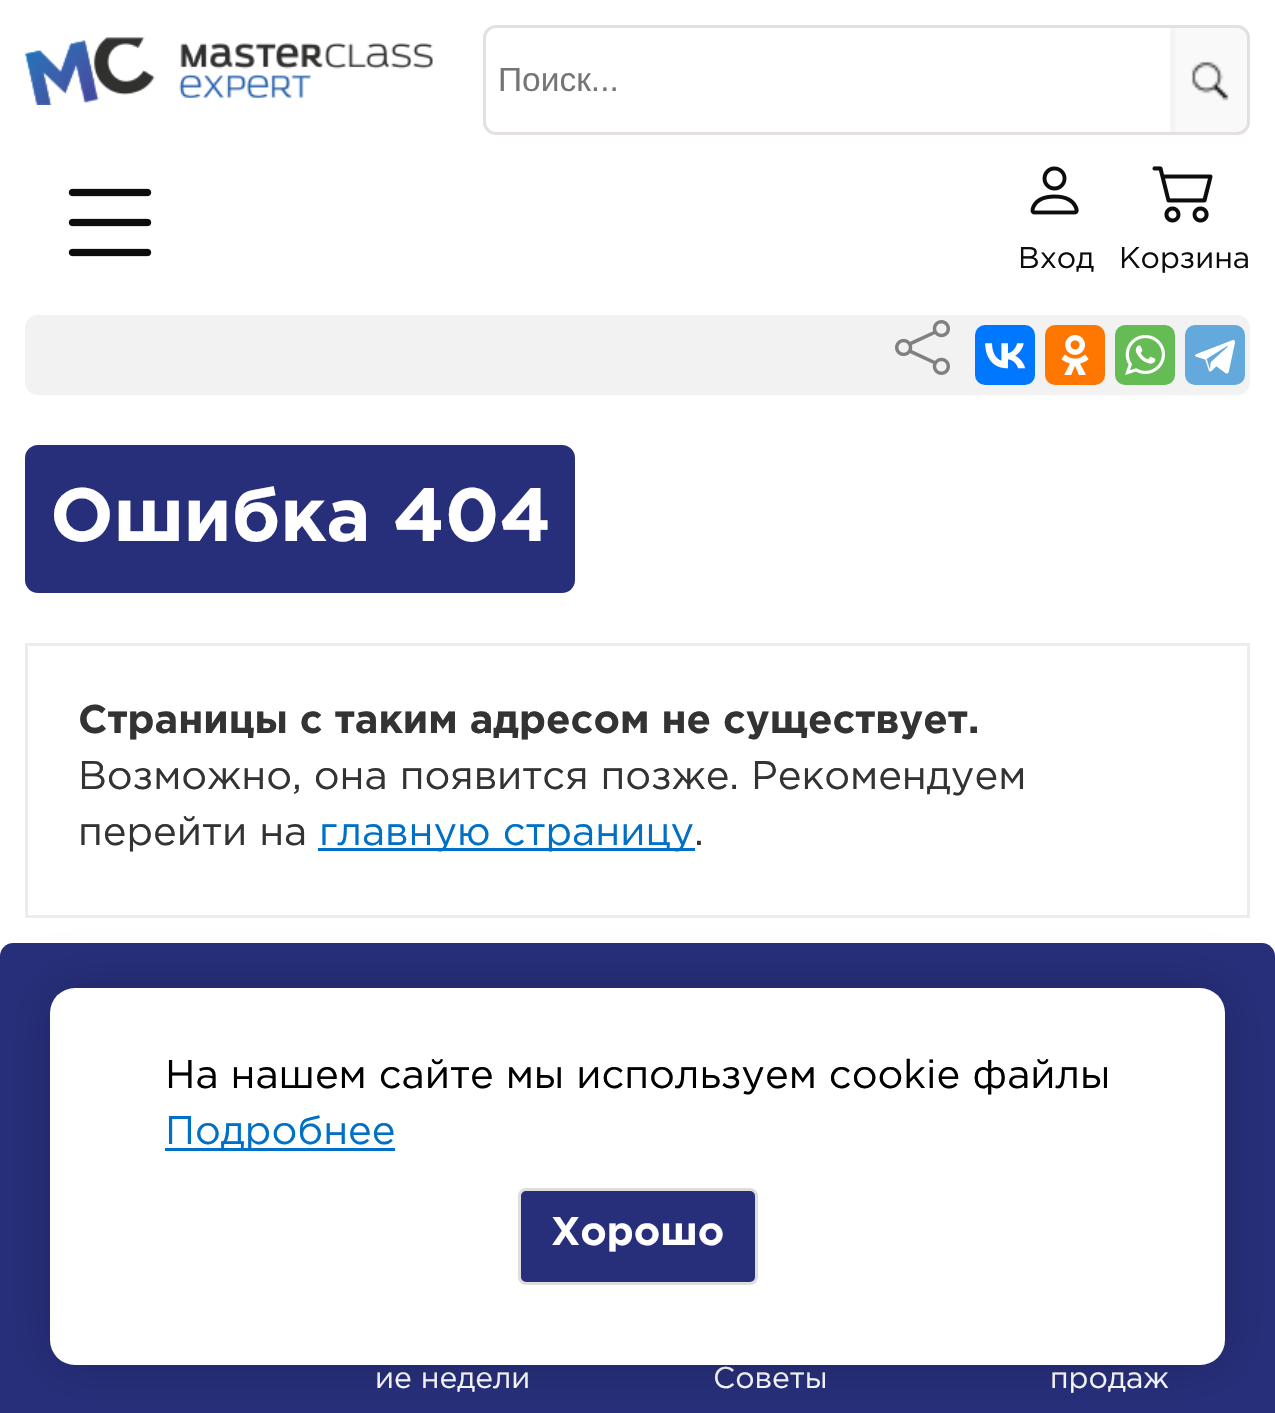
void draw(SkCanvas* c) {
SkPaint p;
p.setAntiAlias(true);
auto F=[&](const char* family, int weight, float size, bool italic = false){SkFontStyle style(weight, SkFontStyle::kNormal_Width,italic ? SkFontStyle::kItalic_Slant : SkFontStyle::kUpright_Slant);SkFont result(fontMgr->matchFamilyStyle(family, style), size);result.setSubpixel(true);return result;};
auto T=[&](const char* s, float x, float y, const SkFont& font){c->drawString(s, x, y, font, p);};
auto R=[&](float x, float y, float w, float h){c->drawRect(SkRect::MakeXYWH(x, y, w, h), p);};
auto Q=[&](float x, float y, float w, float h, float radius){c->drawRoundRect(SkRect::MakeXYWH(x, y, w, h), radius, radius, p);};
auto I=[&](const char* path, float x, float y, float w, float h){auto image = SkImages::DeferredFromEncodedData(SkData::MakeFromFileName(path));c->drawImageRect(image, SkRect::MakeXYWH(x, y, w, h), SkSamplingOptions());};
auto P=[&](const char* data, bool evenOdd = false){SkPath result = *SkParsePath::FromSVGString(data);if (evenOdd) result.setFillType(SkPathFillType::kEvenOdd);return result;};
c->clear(0xffffffff);
I("1.png",25,37,408,68);
I("2.png",1170,25,77,110);
p.setStroke(true);
p.setStrokeWidth(3);
p.setColor(0xffe5dfdf);
c->drawRoundRect(SkRect::MakeXYWH(484.5,26.5,764,107),11.5,11.5,p);
auto f1 = F("Liberation Sans",400,33.5);
p.setStroke(false);
p.setColor(0xff757575);
T("Поиск...",498,91,f1);
I("3.png",68,188,84,69);
I("4.png",1030,166,49,49);
auto f2 = F("Gotham",400,30);
p.setColor(0xff0d0d0d);
T("Вход",1018,268,f2);
I("5.png",1152,166,61,57);
T("Корзина",1119,268,f2);
p.setColor(0xfff2f2f2);
Q(25,315,1225,80,13);
I("6.png",895,320,55,55);
p.setColor(0xff0077ff);
Q(975,325,60,60,10);
I("7.png",985,343,41,26);
p.setColor(0xffff7700);
Q(1045,325,60,60,10);
I("8.png",1061,335,28,40);
p.setColor(0xff65bc54);
Q(1115,325,60,60,10);
I("9.png",1125,335,40,40);
p.setColor(0xff64a9dc);
Q(1185,325,60,60,10);
I("10.png",1195,340,40,34);
p.setColor(0xff272f7b);
Q(25,445,550,148,13);
auto f3 = F("Gotham",700,75);
p.setColor(0xffffffff);
T("Ошибка 404",50,541,f3);
p.setStroke(true);
p.setColor(0xffededed);
c->drawRect(SkRect::MakeXYWH(26.5,644.5,1222,272),p);
auto f4 = F("Gotham",700,40);
p.setStroke(false);
p.setColor(0xff333333);
T("Страницы с таким адресом не существует.",78,733,f4);
auto f5 = F("Gotham",400,40);
T("Возможно, она появится позже. Рекомендуем",78,789,f5);
T("перейти на",78,845,f5);
p.setColor(0xff0070c7);
R(318,848,377,3);
T("главную страницу",319,845,f5);
p.setColor(0xff333333);
T(".",694,845,f5);
p.setColor(0xff272f7b);
c->drawPath(P("M13 943h1249c7 0 13 6 13 13v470h-1275v-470c0-7 6-13 13-13z"),p);
p.setColor(0xffffffff);
T("ие недели",375,1388,f2);
T("Советы",713,1388,f2);
T("продаж",1050,1388,f2);
p.setColor(0x33000000);
p.setMaskFilter(SkMaskFilter::MakeBlur(kNormal_SkBlurStyle, 25));
c->drawRoundRect(SkRect::MakeXYWH(50,988,1175,377),25,25,p);
p.setMaskFilter(nullptr);
p.setColor(0xffffffff);
Q(50,988,1175,377,25);
p.setColor(0xff000000);
T("На нашем сайте мы используем cookie файлы",165,1088,f5);
p.setColor(0xff0070c7);
R(165,1148,230,3);
T("Подробнее",165,1144,f5);
p.setColor(0xff272f7b);
c->drawRoundRect(SkRect::MakeXYWH(519.5,1189.5,237,94),6.5,6.5,p);
p.setStroke(true);
p.setColor(0xffdedede);
c->drawRoundRect(SkRect::MakeXYWH(519.5,1189.5,237,94),6.5,6.5,p);
p.setStroke(false);
p.setColor(0xffffffff);
T("Хорошо",551,1245,f4);
}
